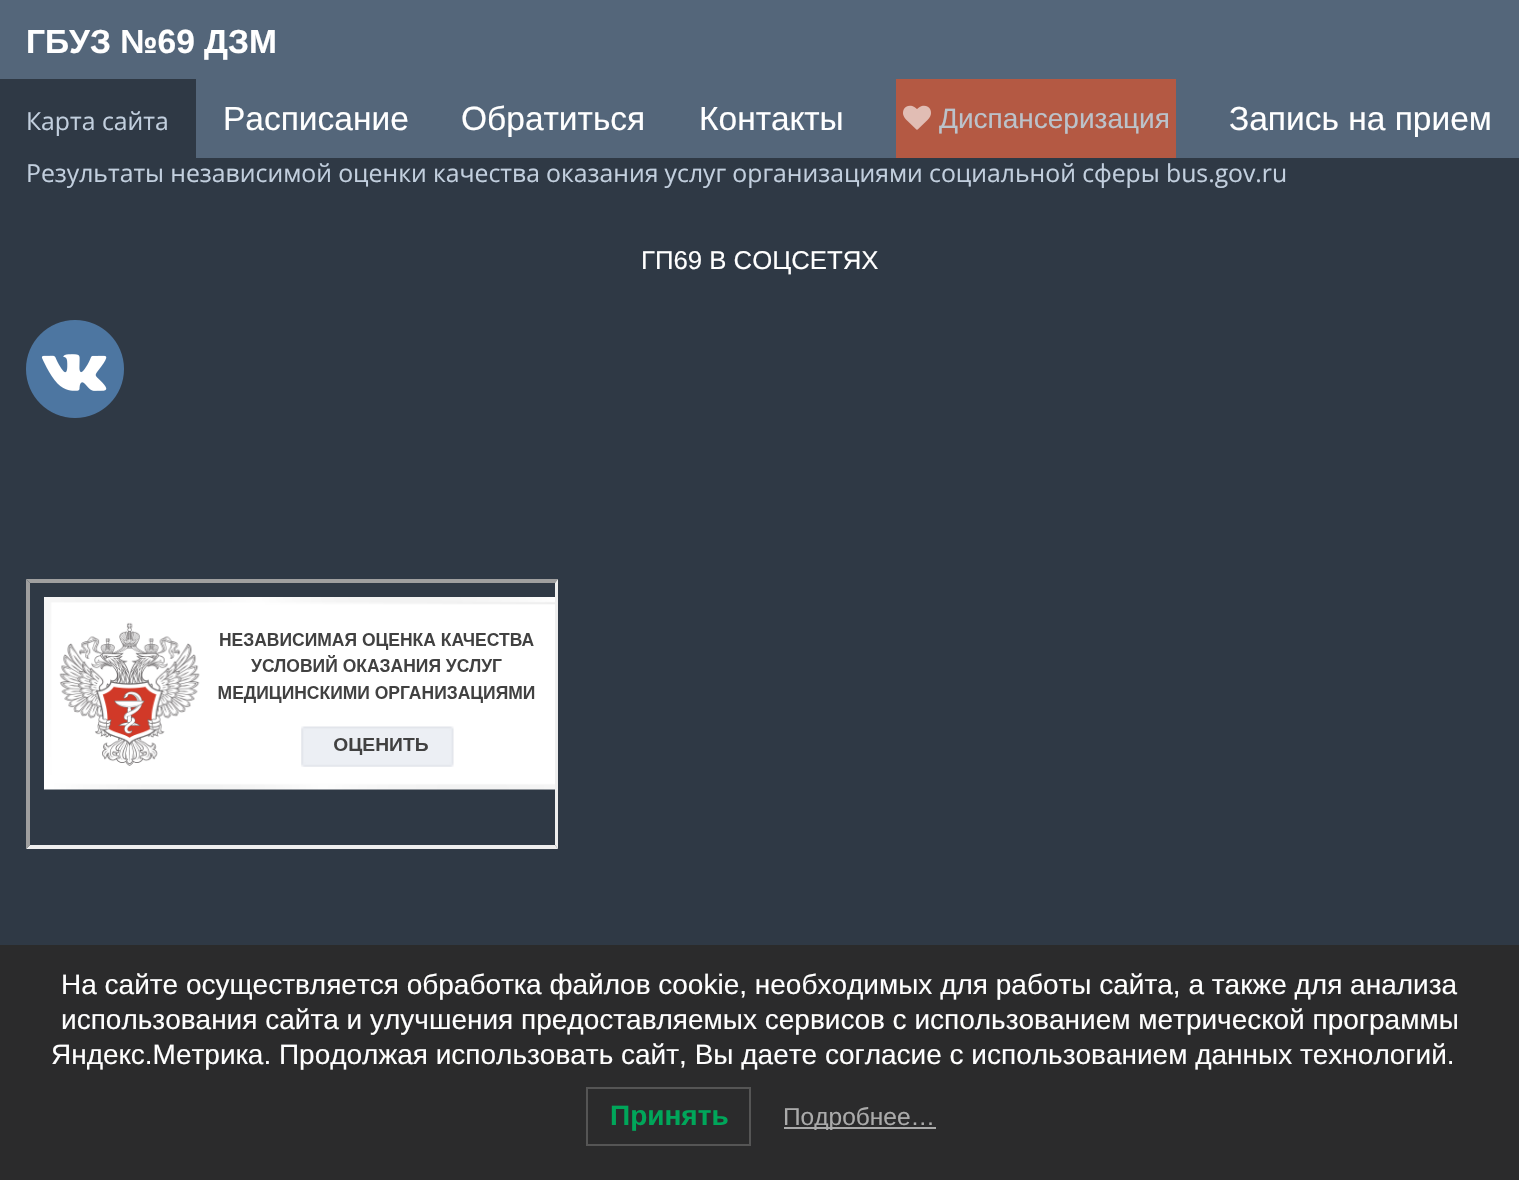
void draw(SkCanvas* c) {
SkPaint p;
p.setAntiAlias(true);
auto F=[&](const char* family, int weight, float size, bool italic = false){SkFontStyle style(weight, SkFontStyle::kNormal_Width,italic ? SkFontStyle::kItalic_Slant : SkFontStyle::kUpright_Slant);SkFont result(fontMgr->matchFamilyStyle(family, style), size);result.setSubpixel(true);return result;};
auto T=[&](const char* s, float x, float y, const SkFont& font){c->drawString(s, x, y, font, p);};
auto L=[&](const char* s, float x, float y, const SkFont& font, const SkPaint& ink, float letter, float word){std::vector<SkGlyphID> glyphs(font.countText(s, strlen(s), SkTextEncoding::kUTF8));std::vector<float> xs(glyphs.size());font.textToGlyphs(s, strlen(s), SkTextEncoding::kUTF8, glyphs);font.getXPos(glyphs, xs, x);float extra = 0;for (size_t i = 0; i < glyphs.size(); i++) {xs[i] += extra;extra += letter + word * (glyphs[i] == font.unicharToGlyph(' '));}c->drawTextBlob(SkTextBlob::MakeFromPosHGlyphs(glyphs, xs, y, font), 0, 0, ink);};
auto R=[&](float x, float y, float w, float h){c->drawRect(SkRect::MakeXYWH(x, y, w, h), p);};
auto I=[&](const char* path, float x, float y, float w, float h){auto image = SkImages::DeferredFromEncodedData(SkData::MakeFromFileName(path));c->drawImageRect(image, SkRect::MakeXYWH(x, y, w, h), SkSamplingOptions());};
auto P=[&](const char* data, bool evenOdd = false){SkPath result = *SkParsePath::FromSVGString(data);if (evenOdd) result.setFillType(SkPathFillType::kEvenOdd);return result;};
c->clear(0xff2f3945);
p.setColor(0xff54667a);
R(0,0,1519,79);
auto f1 = F("Liberation Sans",700,33.5);
p.setColor(0xffffffff);
T("ГБУЗ №69 ДЗМ",26,53,f1);
p.setColor(0xff54667a);
R(196,79,1323,79);
auto f2 = F("Liberation Sans",400,33.5);
p.setColor(0xffffffff);
T("Расписание",223,130,f2);
T("Обратиться",461,130,f2);
T("Контакты",699,130,f2);
p.setColor(0xffb45943);
R(896,79,280,79);
I("1.png",903,105,28,25);
auto f3 = F("Liberation Sans",400,28);
p.setColor(0xffbbc2ca);
T("Диспансеризация",939,128,f3);
p.setColor(0xffffffff);
T("Запись на прием",1229,130,f2);
p.setColor(0xff2b2b2c);
R(0,947,1519,233);
auto f4 = F("Open Sans",400,24.77);
p.setColor(0xffc2cfde);
T("Карта сайта",26,130,f4);
L("Результаты независимой оценки качества оказания услуг организациями социальной сферы bus.gov.ru",26,182,f4,p,0,-.25);
auto f5 = F("Liberation Sans",400,25.75);
p.setColor(0xffffffff);
T("ГП69 В СОЦСЕТЯХ",641,269,f5);
I("2.png",26,320,98,98);
p.setColor(0xff9f9f9f);
c->drawPath(P("M26 579h532l-3 4h-525z"),p);
p.setColor(0xffeeeeee);
c->drawPath(P("M558 579v270l-3-4v-262z"),p);
c->drawPath(P("M558 849h-532l4-4h525z"),p);
p.setColor(0xff9f9f9f);
c->drawPath(P("M26 849v-270l4 4v262z"),p);
I("3.png",44,597,511,193);
p.setColor(0xff2b2b2b);
R(0,945,1519,2);
p.setColor(0xffffffff);
T("На сайте осуществляется обработка файлов cookie, необходимых для работы сайта, а также для анализа",61,994,f3);
T("использования сайта и улучшения предоставляемых сервисов с использованием метрической программы",61,1029,f3);
T("Яндекс.Метрика. Продолжая использовать сайт, Вы даете согласие с использованием данных технологий.",51,1064,f3);
p.setStroke(true);
p.setStrokeWidth(2);
p.setColor(0xff555555);
c->drawRect(SkRect::MakeXYWH(587,1088,163,57),p);
auto f6 = F("Liberation Sans",700,28);
p.setStroke(false);
p.setColor(0xff00a65a);
T("Принять",610,1125,f6);
p.setColor(0xffaaaaaa);
R(784,1127,152,2);
auto f7 = F("Liberation Sans",400,24.5);
T("Подробнее…",783,1125,f7);
}
